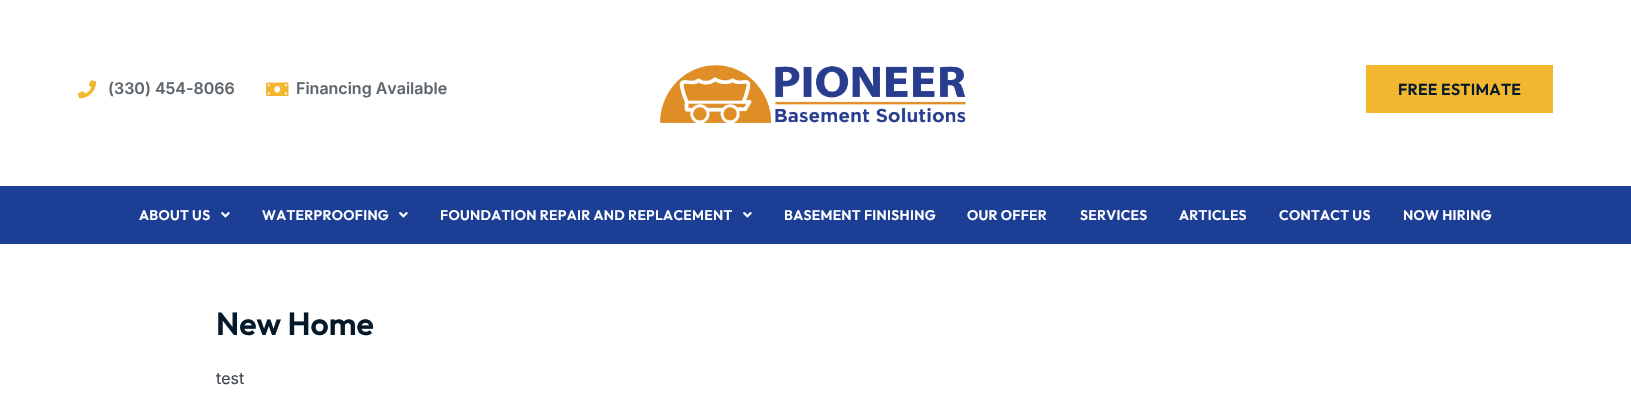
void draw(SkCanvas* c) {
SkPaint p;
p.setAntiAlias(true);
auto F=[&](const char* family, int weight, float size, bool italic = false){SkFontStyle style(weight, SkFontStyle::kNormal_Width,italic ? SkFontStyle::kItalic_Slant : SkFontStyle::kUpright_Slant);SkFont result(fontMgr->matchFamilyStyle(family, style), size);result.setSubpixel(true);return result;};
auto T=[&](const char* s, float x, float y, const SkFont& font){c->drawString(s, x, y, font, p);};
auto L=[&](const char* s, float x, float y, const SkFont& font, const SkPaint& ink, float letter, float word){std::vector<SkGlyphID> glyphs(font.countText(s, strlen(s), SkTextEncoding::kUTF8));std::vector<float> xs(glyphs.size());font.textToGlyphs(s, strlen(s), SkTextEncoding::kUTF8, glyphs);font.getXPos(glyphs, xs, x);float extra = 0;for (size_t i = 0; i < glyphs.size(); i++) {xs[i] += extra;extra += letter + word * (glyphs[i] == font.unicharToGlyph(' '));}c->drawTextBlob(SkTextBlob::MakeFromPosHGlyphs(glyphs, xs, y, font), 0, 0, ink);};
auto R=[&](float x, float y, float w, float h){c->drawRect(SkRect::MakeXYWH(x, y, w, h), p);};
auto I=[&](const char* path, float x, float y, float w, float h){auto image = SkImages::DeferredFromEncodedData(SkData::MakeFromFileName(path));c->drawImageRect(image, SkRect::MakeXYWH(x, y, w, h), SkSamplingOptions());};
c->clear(0xffffffff);
I("1.png",78,80,18,19);
auto f1 = F("Inter",600,16);
p.setColor(0xff5f676e);
T("(330) 454-8066",108,94,f1);
I("2.png",266,82,23,14);
T("Financing Available",296,94,f1);
I("3.png",660,65,306,59);
p.setColor(0xfff2b72f);
R(1366,65,187,48);
auto f2 = F("Outfit",600,16);
p.setColor(0xff04192a);
L("FREE ESTIMATE",1398,95,f2,p,.25,0);
p.setColor(0xff1c3f95);
R(0,186,1631,58);
auto f3 = F("Outfit",600,14);
p.setColor(0xffffffff);
L("ABOUT US",139,220,f3,p,.3,0);
I("4.png",221,212,9,6);
L("WATERPROOFING",262,220,f3,p,.3,0);
I("4.png",399,212,9,6);
L("FOUNDATION REPAIR AND REPLACEMENT",440,220,f3,p,.3,0);
I("4.png",743,212,9,6);
L("BASEMENT FINISHING",784,220,f3,p,.3,0);
L("OUR OFFER",967,220,f3,p,.3,0);
L("SERVICES",1080,220,f3,p,.3,0);
L("ARTICLES",1179,220,f3,p,.3,0);
L("CONTACT US",1279,220,f3,p,.3,0);
L("NOW HIRING",1403,220,f3,p,.3,0);
auto f4 = F("Outfit",600,32);
p.setColor(0xff04192a);
T("New Home",216,335,f4);
auto f5 = F("Inter",400,16);
p.setColor(0xff3e4751);
T("test",216,384,f5);
}
